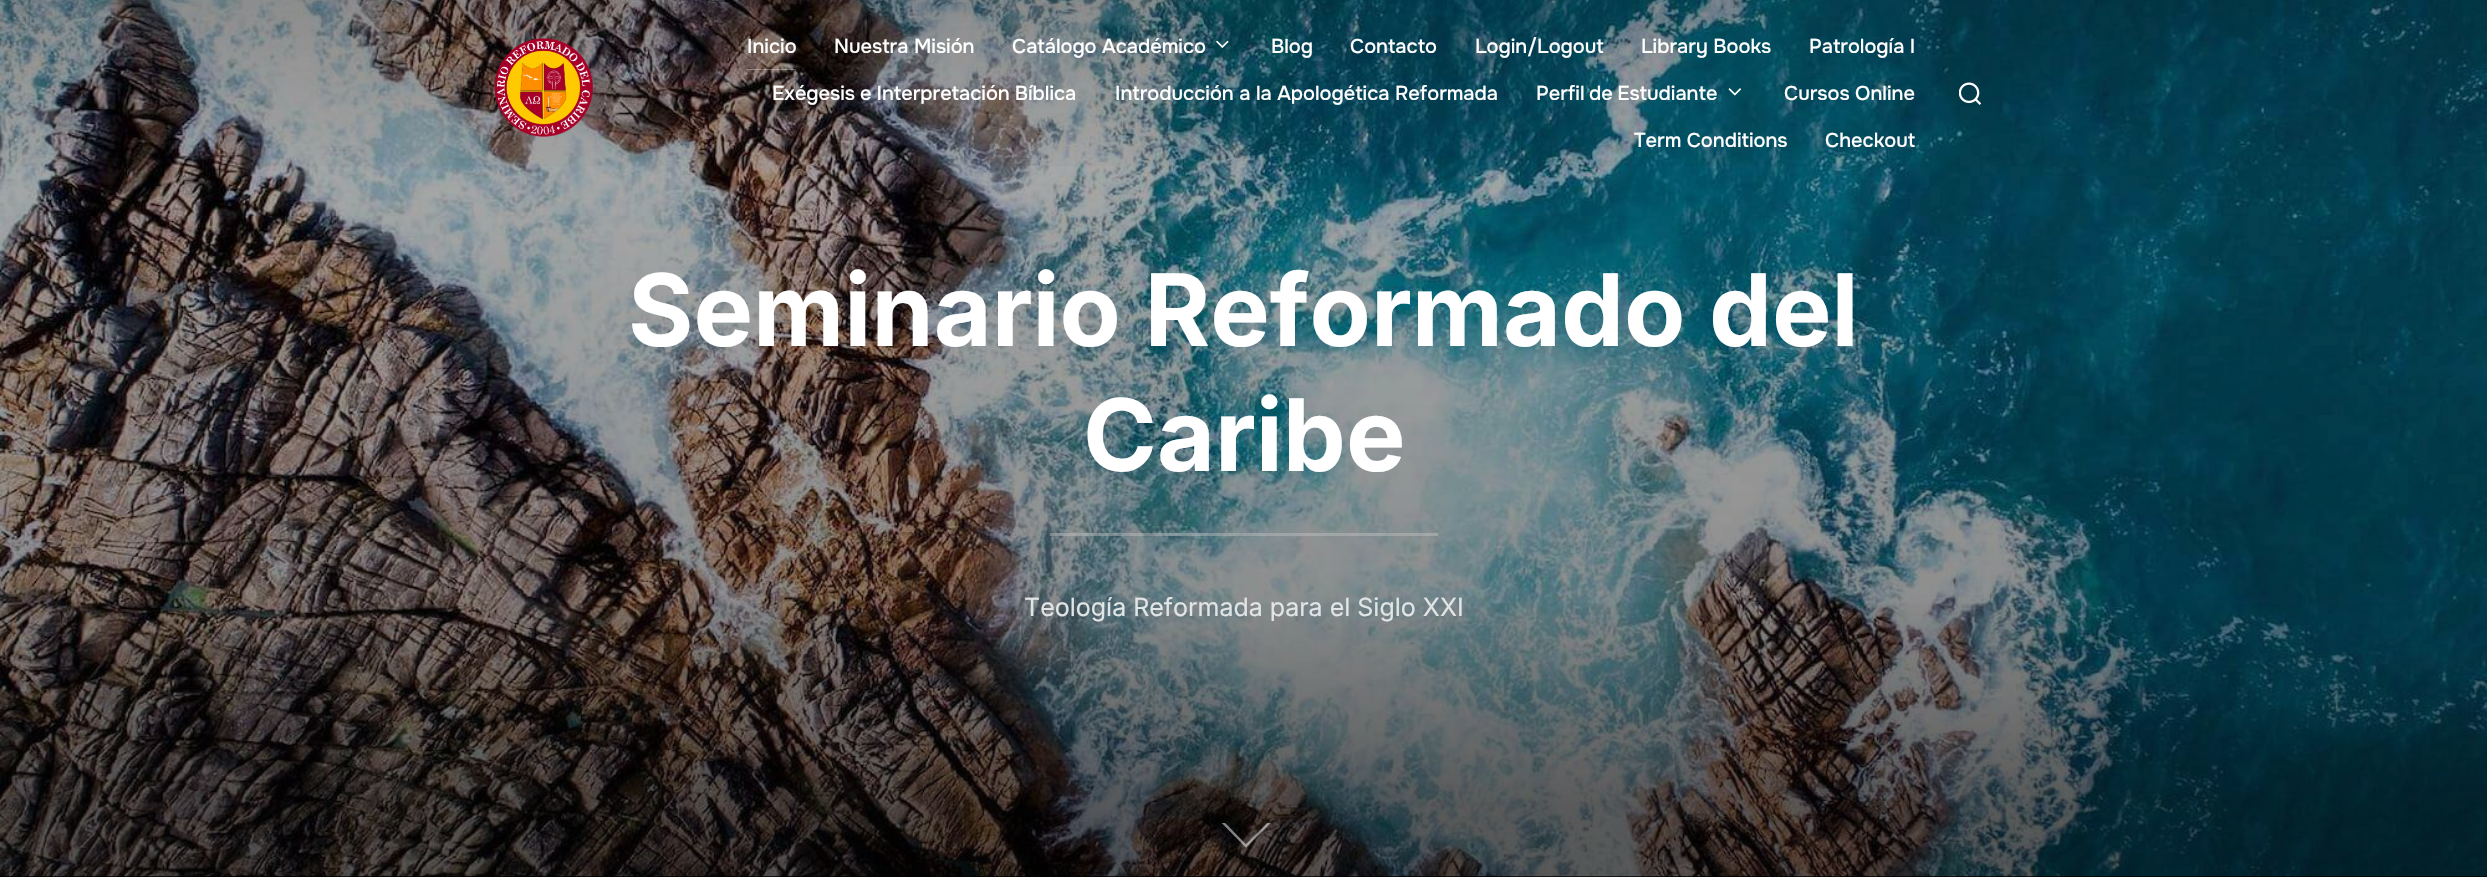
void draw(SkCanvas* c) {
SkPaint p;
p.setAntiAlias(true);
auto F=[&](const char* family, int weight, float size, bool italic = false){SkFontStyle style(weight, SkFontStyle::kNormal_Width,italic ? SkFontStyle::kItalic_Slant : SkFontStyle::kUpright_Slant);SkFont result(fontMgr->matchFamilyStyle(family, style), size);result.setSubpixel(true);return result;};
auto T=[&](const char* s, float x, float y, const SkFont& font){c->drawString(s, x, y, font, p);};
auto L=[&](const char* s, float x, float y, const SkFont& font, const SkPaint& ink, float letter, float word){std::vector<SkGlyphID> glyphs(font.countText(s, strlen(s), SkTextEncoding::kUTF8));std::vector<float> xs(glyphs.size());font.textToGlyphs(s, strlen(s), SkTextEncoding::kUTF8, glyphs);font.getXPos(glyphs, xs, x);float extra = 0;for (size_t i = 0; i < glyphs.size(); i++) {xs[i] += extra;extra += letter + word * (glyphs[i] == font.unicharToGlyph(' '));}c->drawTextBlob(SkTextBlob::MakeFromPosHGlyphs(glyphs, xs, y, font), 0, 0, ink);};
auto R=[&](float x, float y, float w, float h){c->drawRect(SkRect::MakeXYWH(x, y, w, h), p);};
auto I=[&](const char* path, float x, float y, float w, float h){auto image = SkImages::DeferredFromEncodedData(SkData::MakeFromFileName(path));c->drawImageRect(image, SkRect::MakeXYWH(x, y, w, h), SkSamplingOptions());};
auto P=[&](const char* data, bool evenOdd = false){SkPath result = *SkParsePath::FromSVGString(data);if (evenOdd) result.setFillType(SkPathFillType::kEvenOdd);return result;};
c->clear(0xff000000);
I("5.png",0,0,2487,877);
{
const SkColor colors[] = {0x4d000000,0x80000000};
const float stops[] = {0,1};
const SkPoint ends[] = {{1244,0}, {1244,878}};
p.setShader(SkGradientShader::MakeLinear(ends, colors, stops, 2, SkTileMode::kClamp));
p.setAlpha(255);
}
R(0,0,2487,877);
{
const SkColor colors[] = {0x33000000,0x00000000};
const float stops[] = {.01,1};
const SkPoint ends[] = {{1244,0}, {1244,186}};
p.setShader(SkGradientShader::MakeLinear(ends, colors, stops, 2, SkTileMode::kClamp));
p.setAlpha(255);
}
R(0,0,2487,166);
I("1.png",494,38,99,99);
p.setShader(nullptr);
p.setColor(0x4dffffff);
R(746,69,50,1);
auto f1 = F("Onest",500,20);
p.setColor(0xffffffff);
T("Inicio",747,53,f1);
T("Nuestra Misión",834,53,f1);
T("Catálogo Académico",1012,53,f1);
I("2.png",1216,40,13,8);
T("Blog",1271,53,f1);
T("Contacto",1350,53,f1);
T("Login/Logout",1475,53,f1);
T("Library Books",1641,53,f1);
T("Patrología I",1809,53,f1);
L("Exégesis e Interpretación Bíblica",772,100,f1,p,0,-.5);
T("Introducción a la Apologética Reformada",1115,100,f1);
L("Perfil de Estudiante",1536,100,f1,p,0,-1);
I("3.png",1728,88,14,8);
T("Cursos Online",1784,100,f1);
T("Term Conditions",1634,147,f1);
T("Checkout",1825,147,f1);
I("4.png",1959,82,22,23);
{
const SkColor colors[] = {0x00000000,0x4d000000,0x4d000000};
const float stops[] = {0,.75,1};
const SkPoint ends[] = {{1244,587}, {1244,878}};
p.setShader(SkGradientShader::MakeLinear(ends, colors, stops, 3, SkTileMode::kClamp));
p.setAlpha(255);
}
R(0,603,2487,274);
auto f2 = F("Inter",700,100);
p.setShader(nullptr);
p.setColor(0xffffffff);
T("Seminario Reformado del",628,346,f2);
T("Caribe",1083,471,f2);
p.setColor(0x66c9c9c9);
R(1050,533,388,3);
auto f3 = F("Inter",400,25);
p.setColor(0xffe2e5e6);
T("Teología Reformada para el Siglo XXI",1024,616,f3);
c->save();
c->clipRect(SkRect::MakeXYWH(1209,823,70,30));
p.setStroke(true);
p.setStrokeWidth(2.5);
p.setColor(0x80ffffff);
c->drawPath(P("M1246 796.5l25 24.5l-25 25l-24.5-25z"),p);
c->restore();
}
